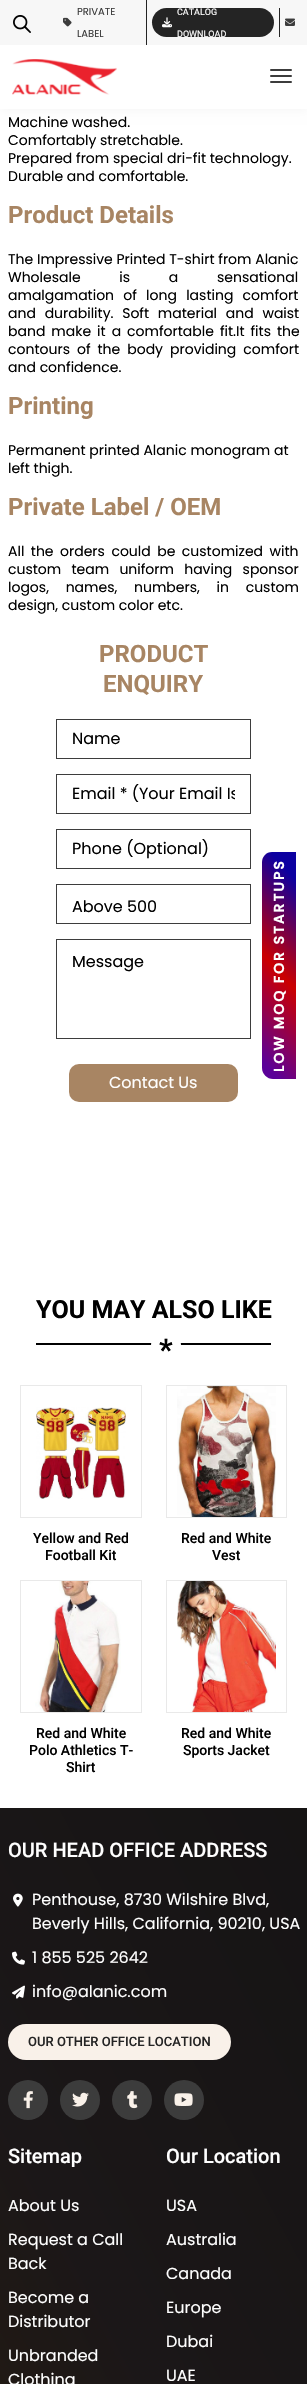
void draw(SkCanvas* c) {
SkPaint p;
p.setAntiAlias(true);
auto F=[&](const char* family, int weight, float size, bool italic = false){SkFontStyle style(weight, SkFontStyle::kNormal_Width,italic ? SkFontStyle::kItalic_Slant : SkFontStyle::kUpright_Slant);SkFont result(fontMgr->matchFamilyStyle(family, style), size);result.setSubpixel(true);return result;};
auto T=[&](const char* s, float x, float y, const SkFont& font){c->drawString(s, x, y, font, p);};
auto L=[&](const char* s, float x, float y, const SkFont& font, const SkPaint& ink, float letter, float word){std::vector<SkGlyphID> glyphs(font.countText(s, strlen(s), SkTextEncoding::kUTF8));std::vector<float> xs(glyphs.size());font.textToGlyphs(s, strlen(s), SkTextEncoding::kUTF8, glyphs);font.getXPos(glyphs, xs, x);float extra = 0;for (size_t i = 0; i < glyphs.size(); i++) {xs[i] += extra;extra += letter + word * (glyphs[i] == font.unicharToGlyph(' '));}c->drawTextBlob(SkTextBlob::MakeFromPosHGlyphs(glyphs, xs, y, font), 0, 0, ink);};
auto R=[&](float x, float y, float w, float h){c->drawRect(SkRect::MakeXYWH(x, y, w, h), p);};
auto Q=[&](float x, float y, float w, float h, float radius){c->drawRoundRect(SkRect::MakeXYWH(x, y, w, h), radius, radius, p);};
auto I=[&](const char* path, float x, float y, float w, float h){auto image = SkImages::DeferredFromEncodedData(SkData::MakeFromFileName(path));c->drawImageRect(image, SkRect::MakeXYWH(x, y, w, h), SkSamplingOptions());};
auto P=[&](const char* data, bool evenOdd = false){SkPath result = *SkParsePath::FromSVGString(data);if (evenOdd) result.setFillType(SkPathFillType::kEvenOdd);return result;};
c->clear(0xffffffff);
p.setColor(0x0a000000);
p.setMaskFilter(SkMaskFilter::MakeBlur(kNormal_SkBlurStyle, 5));
c->drawRect(SkRect::MakeXYWH(1,1,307,109),p);
p.setMaskFilter(nullptr);
p.setColor(0xffffffff);
R(0,45,307,64);
p.setColor(0xfff7f7f7);
R(0,0,307,45);
I("1.png",13,15,18,18);
p.setColor(0xff242424);
R(146,0,1,45);
I("2.png",63,17,9,10);
auto f1 = F("Poppins",400,10);
p.setColor(0xff3c3c3c);
T("PRIVATE",77,15,f1);
T("LABEL",77,37,f1);
p.setColor(0xff242424);
R(279,8,1,29);
Q(152,8,122,29,14.5);
I("3.png",162,17,10,11);
auto f2 = F("Roboto",400,9);
p.setColor(0xffffffff);
T("CATALOG",177,15,f2);
T("DOWNLOAD",177,37,f2);
I("4.png",285,18,10,8);
I("5.png",12,59,105,36);
p.setColor(0xff3c3c3c);
Q(270,69,22,2,1);
Q(270,75,22,2,1);
Q(270,81,22,2,1);
auto f3 = F("Poppins",400,14);
p.setColor(0xff000000);
T("Machine washed.",8,127,f3);
T("Comfortably stretchable.",8,145,f3);
T("Prepared from special dri-fit technology.",8,163,f3);
T("Durable and comfortable.",8,181,f3);
auto f4 = F("Roboto",700,24);
p.setColor(0xffa88563);
T("Product Details",8,223,f4);
p.setColor(0xff000000);
T("The Impressive Printed T-shirt from Alanic",8,264,f3);
L("Wholesale is a sensational",8,282,f3,p,0,35);
L("amalgamation of long lasting comfort",8,300,f3,p,0,5.5);
L("and durability. Soft material and waist",8,318,f3,p,0,5);
L("band make it a comfortable fit.It fits the",8,336,f3,p,0,2.25);
L("contours of the body providing comfort",8,354,f3,p,0,3.25);
T("and confidence.",8,372,f3);
p.setColor(0xffa88563);
T("Printing",8,414,f4);
p.setColor(0xff000000);
T("Permanent printed Alanic monogram at",8,455,f3);
T("left thigh.",8,473,f3);
p.setColor(0xffa88563);
T("Private Label / OEM",8,515,f4);
p.setColor(0xff000000);
L("All the orders could be customized with",8,556,f3,p,0,2.75);
L("custom team uniform having sponsor",8,574,f3,p,0,6.5);
L("logos, names, numbers, in custom",8,592,f3,p,0,13);
T("design, custom color etc.",8,610,f3);
p.setColor(0xffa88563);
T("PRODUCT",99,662,f4);
T("ENQUIRY",103,692,f4);
p.setStroke(true);
p.setStrokeWidth(1);
p.setColor(0xff3d3d3d);
c->drawRect(SkRect::MakeXYWH(56.5,719.5,194,39),p);
auto f5 = F("Poppins",400,16);
p.setStroke(false);
p.setColor(0xff000000);
T("Name",72,744,f5);
p.setStroke(true);
p.setColor(0xff3d3d3d);
c->drawRect(SkRect::MakeXYWH(56.5,774.5,194,39),p);
c->save();
c->clipRect(SkRect::MakeXYWH(72,781,163,25));
p.setStroke(false);
p.setColor(0xff000000);
T("Email * (Your Email Is",72,799,f5);
c->restore();
p.setStroke(true);
p.setColor(0xff3d3d3d);
c->drawRect(SkRect::MakeXYWH(56.5,829.5,194,39),p);
p.setStroke(false);
p.setColor(0xff000000);
T("Phone (Optional)",72,854,f5);
p.setStroke(true);
p.setColor(0xff3d3d3d);
c->drawRect(SkRect::MakeXYWH(56.5,884.5,194,39),p);
p.setStroke(false);
p.setColor(0xff000000);
T("Above 500",72,912,f5);
p.setStroke(true);
p.setColor(0xff3d3d3d);
c->drawRect(SkRect::MakeXYWH(56.5,939.5,194,99),p);
p.setStroke(false);
p.setColor(0xff000000);
T("Message",72,967,f5);
p.setColor(0xffa88563);
Q(69,1064,169,38,10);
p.setColor(0xffffffff);
T("Contact Us",109,1088,f5);
p.setColor(0xff000000);
R(36,1343,235,2);
auto f6 = F("Roboto",700,25);
T("YOU MAY ALSO LIKE",36,1318,f6);
p.setColor(0xffffffff);
c->drawCircle(166,1345,15,p);
auto f7 = F("Roboto",700,30);
p.setColor(0xff000000);
T("*",159,1360,f7);
p.setStroke(true);
p.setColor(0xffe9e9e9);
c->drawRect(SkRect::MakeXYWH(20.5,1385.5,121,132),p);
I("6.png",36,1407,90,92);
auto f8 = F("Roboto",500,14);
p.setStroke(false);
p.setColor(0xff000000);
T("Yellow and Red",33,1543,f8);
T("Football Kit",45,1560,f8);
p.setStroke(true);
p.setColor(0xffe9e9e9);
c->drawRect(SkRect::MakeXYWH(166.5,1385.5,120,132),p);
I("7.png",177,1386,99,131);
p.setStroke(false);
p.setColor(0xff000000);
T("Red and White",181,1543,f8);
T("Vest",212,1560,f8);
p.setStroke(true);
p.setColor(0xffe9e9e9);
c->drawRect(SkRect::MakeXYWH(20.5,1580.5,121,132),p);
I("8.png",35,1581,86,131);
p.setStroke(false);
p.setColor(0xff000000);
T("Red and White",36,1738,f8);
T("Polo Athletics T-",29,1755,f8);
T("Shirt",66,1772,f8);
p.setStroke(true);
p.setColor(0xffe9e9e9);
c->drawRect(SkRect::MakeXYWH(166.5,1580.5,120,132),p);
I("9.png",177,1581,99,131);
p.setStroke(false);
p.setColor(0xff000000);
T("Red and White",181,1738,f8);
T("Sports Jacket",183,1755,f8);
{
const SkColor colors[] = {0xff5b0198,0xffcb0000,0xff0c00a0};
const float stops[] = {.07,.48,.9};
const SkPoint ends[] = {{213,1026}, {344,906}};
p.setShader(SkGradientShader::MakeLinear(ends, colors, stops, 3, SkTileMode::kClamp));
p.setAlpha(255);
}
c->drawPath(P("M262 1068v-206c0-5 4-10 10-10h24v227h-23c-6 0-11-5-11-11z"),p);
auto f9 = F("Poppins",700,14);
p.setShader(nullptr);
p.setColor(0xffffffff);
c->save();
c->rotate(-90,284,1072);
L("LOW MOQ FOR STARTUPS",284,1072,f9,p,2,0);
c->restore();
{
const SkColor colors[] = {0xff3a2a19,0xff261b10,0xff1b1718,0xff111111};
const float stops[] = {.02,.14,.38,1};
const SkPoint ends[] = {{-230,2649}, {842,2079}};
p.setShader(SkGradientShader::MakeLinear(ends, colors, stops, 4, SkTileMode::kClamp));
p.setAlpha(255);
}
R(0,1808,307,576);
auto f10 = F("Roboto",500,20);
p.setShader(nullptr);
p.setColor(0xffffffff);
T("OUR HEAD OFFICE ADDRESS",8,1857,f10);
I("10.png",13,1893,10,14);
T("Penthouse, 8730 Wilshire Blvd,",32,1905,f5);
T("Beverly Hills, California, 90210, USA",32,1929,f5);
I("11.png",12,1951,13,14);
T("1 855 525 2642",32,1963,f5);
I("12.png",12,1985,13,14);
T("info@alanic.com",32,1997,f5);
p.setColor(0xfff9f1e9);
Q(8,2024,223,36,18);
auto f11 = F("Roboto",500,13);
p.setColor(0xff242424);
T("OUR OTHER OFFICE LOCATION",28,2046,f11);
p.setColor(0xff3c3c3c);
c->drawCircle(28,2100,20,p);
I("13.png",23,2091,10,18);
c->drawCircle(80,2100,20,p);
I("14.png",72,2092,17,15);
c->drawCircle(132,2100,20,p);
I("15.png",127,2091,11,18);
c->drawCircle(184,2100,20,p);
I("16.png",174,2093,19,13);
p.setColor(0xffffffff);
T("Sitemap",8,2163,f10);
T("About Us",8,2211,f5);
T("Request a Call",8,2245,f5);
T("Back",8,2269,f5);
T("Become a",8,2303,f5);
T("Distributor",8,2327,f5);
T("Unbranded",8,2361,f5);
T("Clothing",8,2385,f5);
T("Our Location",166,2163,f10);
T("USA",166,2211,f5);
T("Australia",166,2245,f5);
T("Canada",166,2279,f5);
T("Europe",166,2313,f5);
T("Dubai",166,2347,f5);
T("UAE",166,2381,f5);
}
